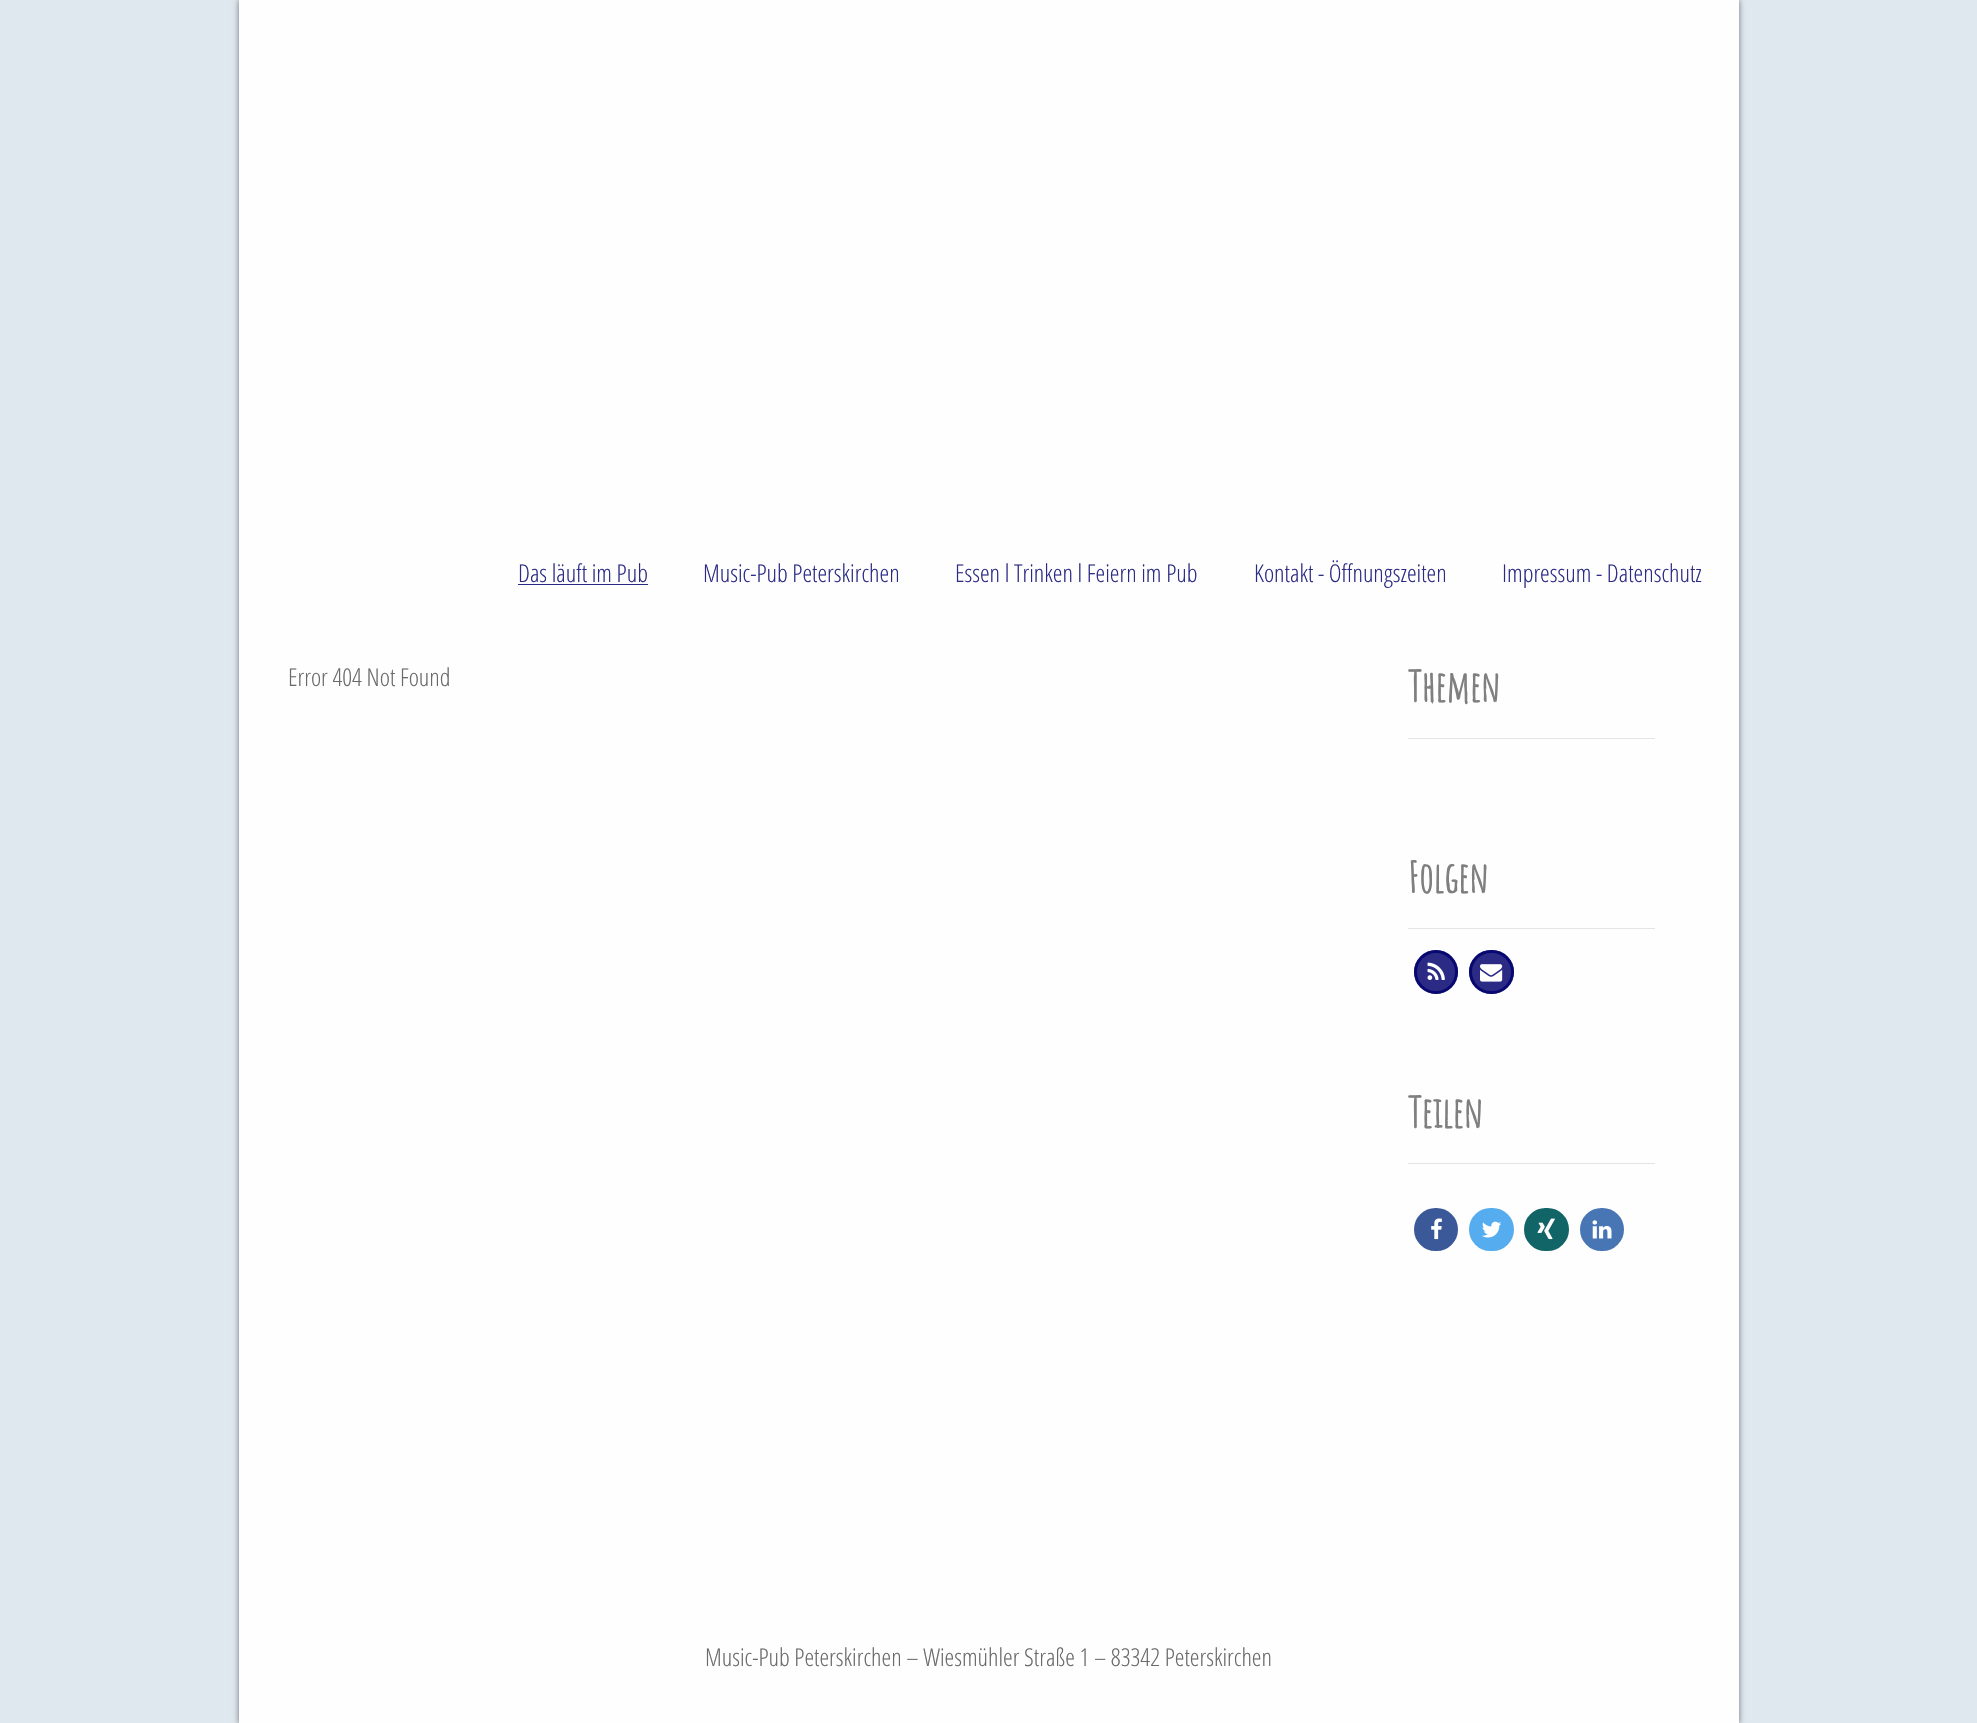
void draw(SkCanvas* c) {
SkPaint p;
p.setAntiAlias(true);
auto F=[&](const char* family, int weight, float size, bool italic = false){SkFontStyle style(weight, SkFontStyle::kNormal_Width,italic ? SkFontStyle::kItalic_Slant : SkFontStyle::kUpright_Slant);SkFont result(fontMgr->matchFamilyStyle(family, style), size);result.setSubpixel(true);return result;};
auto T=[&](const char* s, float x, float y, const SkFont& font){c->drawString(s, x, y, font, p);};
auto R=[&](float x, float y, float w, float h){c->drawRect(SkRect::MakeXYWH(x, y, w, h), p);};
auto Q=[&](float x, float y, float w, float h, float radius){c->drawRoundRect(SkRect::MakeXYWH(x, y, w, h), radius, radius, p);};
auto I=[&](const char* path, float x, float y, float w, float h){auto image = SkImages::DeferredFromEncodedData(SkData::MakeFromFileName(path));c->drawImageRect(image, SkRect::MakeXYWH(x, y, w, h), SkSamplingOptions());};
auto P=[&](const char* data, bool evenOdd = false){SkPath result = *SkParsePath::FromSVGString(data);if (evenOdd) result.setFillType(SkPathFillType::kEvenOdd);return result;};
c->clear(0xffdfe7ef);
c->save();
c->clipPath(P("M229 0h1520v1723h-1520zm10 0h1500v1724h-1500z",true),true);
p.setColor(0x80000000);
p.setMaskFilter(SkMaskFilter::MakeBlur(kNormal_SkBlurStyle, 3));
c->drawRect(SkRect::MakeXYWH(239,0,1500,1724),p);
p.setMaskFilter(nullptr);
c->restore();
p.setColor(0xf2ffffff);
R(239,0,1500,1723);
auto f1 = F("Open Sans Condensed",300,24.6);
p.setColor(0xff2b2b85);
T("Das läuft im Pub",518,582,f1);
R(518,584,130,1);
T("Music-Pub Peterskirchen",703,582,f1);
T("Essen l Trinken l Feiern im Pub",955,582,f1);
T("Kontakt - Öffnungszeiten",1254,582,f1);
T("Impressum - Datenschutz",1502,582,f1);
p.setColor(0xff6a6a6a);
T("Error 404 Not Found",288,686,f1);
p.setColor(0xffe4e4e5);
R(1408,738,247,1);
auto f2 = F("Amatic SC",700,42);
p.setColor(0xff7f7f7f);
T("Themen",1408,702,f2);
p.setColor(0xffe4e4e5);
R(1408,928,247,1);
p.setColor(0xff7f7f7f);
T("Folgen",1408,893,f2);
p.setColor(0xff2b2b85);
c->drawCircle(1436,972,22,p);
p.setStroke(true);
p.setStrokeWidth(3);
p.setColor(0xd400006c);
c->drawCircle(1436,972,20.5,p);
I("1.png",1427,962,18,18);
p.setStroke(false);
p.setColor(0xff2b2b85);
Q(1469,950,45,44,22);
p.setStroke(true);
p.setColor(0xd400006c);
c->drawRoundRect(SkRect::MakeXYWH(1470.5,951.5,42,41),20.5,20.5,p);
I("2.png",1480,964,23,18);
p.setStroke(false);
p.setColor(0xffe4e4e5);
R(1408,1163,247,1);
p.setColor(0xff7f7f7f);
T("Teilen",1408,1128,f2);
p.setColor(0xff3b5998);
c->drawRoundRect(SkRect::MakeXYWH(1415.5,1209.5,41,40),20,20,p);
p.setStroke(true);
c->drawRoundRect(SkRect::MakeXYWH(1415.5,1209.5,41,40),20,20,p);
I("3.png",1431,1218,11,22);
p.setStroke(false);
p.setColor(0xff55acee);
c->drawRoundRect(SkRect::MakeXYWH(1470.5,1209.5,42,40),20,20,p);
p.setStroke(true);
c->drawRoundRect(SkRect::MakeXYWH(1470.5,1209.5,42,40),20,20,p);
I("4.png",1482,1221,20,17);
p.setStroke(false);
p.setColor(0xff126567);
c->drawRoundRect(SkRect::MakeXYWH(1525.5,1209.5,42,40),20,20,p);
p.setStroke(true);
c->drawRoundRect(SkRect::MakeXYWH(1525.5,1209.5,42,40),20,20,p);
I("5.png",1537,1218,18,22);
p.setStroke(false);
p.setColor(0xff4875b4);
c->drawRoundRect(SkRect::MakeXYWH(1581.5,1209.5,41,40),20,20,p);
p.setStroke(true);
c->drawRoundRect(SkRect::MakeXYWH(1581.5,1209.5,41,40),20,20,p);
I("6.png",1592,1220,20,19);
p.setStroke(false);
p.setColor(0xff6a6a6a);
T("Music-Pub Peterskirchen – Wiesmühler Straße 1 – 83342 Peterskirchen",705,1666,f1);
}
